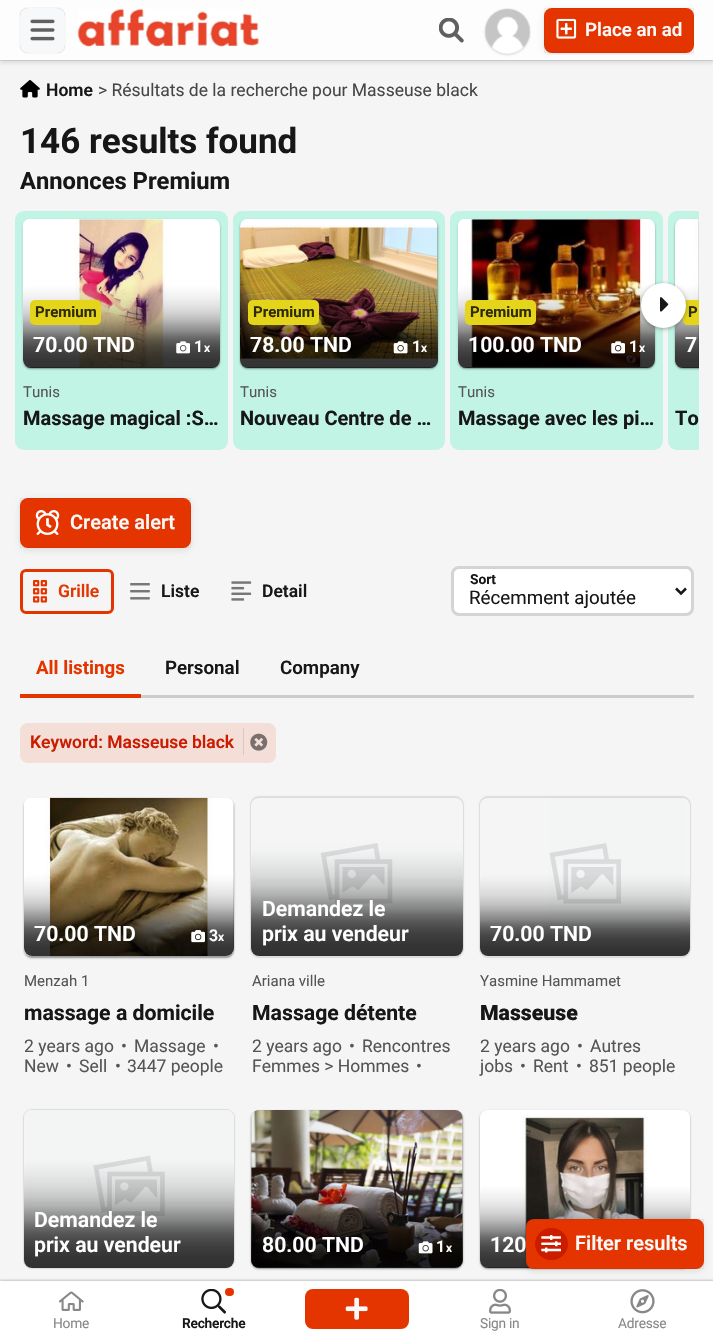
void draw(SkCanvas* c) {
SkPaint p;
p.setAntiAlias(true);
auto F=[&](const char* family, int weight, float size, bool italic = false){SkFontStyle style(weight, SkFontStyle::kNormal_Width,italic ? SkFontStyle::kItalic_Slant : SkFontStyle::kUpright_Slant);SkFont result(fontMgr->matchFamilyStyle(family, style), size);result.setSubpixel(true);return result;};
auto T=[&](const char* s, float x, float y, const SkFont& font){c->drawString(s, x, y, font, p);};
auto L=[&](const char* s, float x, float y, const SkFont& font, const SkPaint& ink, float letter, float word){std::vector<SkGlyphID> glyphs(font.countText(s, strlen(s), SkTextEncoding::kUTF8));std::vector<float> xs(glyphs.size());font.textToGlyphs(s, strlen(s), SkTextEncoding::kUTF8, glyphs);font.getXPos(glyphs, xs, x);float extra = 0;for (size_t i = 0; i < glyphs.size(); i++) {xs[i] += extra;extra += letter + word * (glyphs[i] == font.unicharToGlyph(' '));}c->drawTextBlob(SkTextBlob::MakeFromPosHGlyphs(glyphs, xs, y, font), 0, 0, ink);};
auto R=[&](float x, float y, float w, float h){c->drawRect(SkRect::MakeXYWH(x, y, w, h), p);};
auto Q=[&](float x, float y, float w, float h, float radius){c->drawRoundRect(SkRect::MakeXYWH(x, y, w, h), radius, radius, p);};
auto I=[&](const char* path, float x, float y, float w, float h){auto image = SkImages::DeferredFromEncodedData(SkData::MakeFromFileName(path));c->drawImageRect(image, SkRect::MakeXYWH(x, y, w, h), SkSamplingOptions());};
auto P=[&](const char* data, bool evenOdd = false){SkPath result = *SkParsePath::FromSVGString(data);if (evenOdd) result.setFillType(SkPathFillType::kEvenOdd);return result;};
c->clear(0xfff5f5f5);
p.setColor(0xffdddddd);
c->drawPath(P("M0 60v1h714v-60v59z"),p);
p.setColor(0x1a000000);
p.setMaskFilter(SkMaskFilter::MakeBlur(kNormal_SkBlurStyle, 2));
c->drawRect(SkRect::MakeXYWH(0,3,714,60),p);
p.setMaskFilter(nullptr);
p.setColor(0xfffdfdfd);
R(0,0,713,60);
p.setColor(0x4d000000);
p.setMaskFilter(SkMaskFilter::MakeBlur(kNormal_SkBlurStyle, .5));
c->drawRoundRect(SkRect::MakeXYWH(20,8,45,45),8,8,p);
p.setMaskFilter(nullptr);
p.setColor(0xfff7f8f9);
Q(20,8,45,45,8);
I("1.png",30,19,25,22);
I("2.png",77,8,182,39);
I("3.png",439,18,25,25);
p.setColor(0x26000000);
p.setMaskFilter(SkMaskFilter::MakeBlur(kNormal_SkBlurStyle, 1));
c->drawRoundRect(SkRect::MakeXYWH(485,10,45,45),22.5,22.5,p);
p.setMaskFilter(nullptr);
I("4.png",484,8,46,46);
c->save();
c->clipRect(SkRect::MakeXYWH(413,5,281,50));
p.setColor(0x1a000000);
p.setMaskFilter(SkMaskFilter::MakeBlur(kNormal_SkBlurStyle, 3));
c->drawRoundRect(SkRect::MakeXYWH(544,10,150,45),8,8,p);
p.setMaskFilter(nullptr);
c->restore();
p.setColor(0xffe43500);
Q(544,8,150,45,8);
p.setStroke(true);
p.setStrokeWidth(1);
p.setColor(0x0d000000);
c->drawRect(SkRect::MakeXYWH(544.5,8.5,149,44),p);
I("5.png",556,18,21,21);
auto f1 = F("Roboto",600,18.75);
p.setStroke(false);
p.setColor(0xfff9f9f9);
T("Place an ad",585,36,f1);
I("6.png",20,80,20,18);
auto f2 = F("Roboto",600,17.5);
p.setColor(0xff171717);
T("Home",46,96,f2);
auto f3 = F("Roboto",400,17.5);
p.setColor(0xff474747);
T("> Résultats de la recherche pour Masseuse black",98,96,f3);
auto f4 = F("Roboto",700,35);
p.setColor(0xff171717);
T("146 results found",20,153,f4);
auto f5 = F("Roboto",700,23.75);
T("Annonces Premium",20,189,f5);
p.setColor(0xffc1f4e4);
Q(450,211,213,239,9);
p.setColor(0x66000000);
p.setMaskFilter(SkMaskFilter::MakeBlur(kNormal_SkBlurStyle, 1));
c->drawRoundRect(SkRect::MakeXYWH(458,220,197,149),8,8,p);
p.setMaskFilter(nullptr);
I("12.png",457,218,198,150);
{
const SkColor colors[] = {0x00000000,0x0d000000,0x1c000000,0x30000000,0x47000000,0x5e000000,0x75000000,0x8c000000,0xa1000000,0xb3000000,0xbf000000,0xc9000000,0xcc000000};
const float stops[] = {0,.14,.25,.35,.43,.49,.56,.61,.67,.74,.81,.9,1};
const SkPoint ends[] = {{556,285}, {556,368}};
p.setShader(SkGradientShader::MakeLinear(ends, colors, stops, 13, SkTileMode::kClamp));
p.setAlpha(255);
}
Q(458,285,197,83,8);
p.setShader(nullptr);
p.setColor(0xffc1f4e4);
c->drawPath(P("M677 211h22v239h-22c-5 0-9-4-9-9v-221c0-5 4-9 9-9z"),p);
c->save();
c->clipRect(SkRect::MakeXYWH(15,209,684,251));
p.setColor(0x66000000);
p.setMaskFilter(SkMaskFilter::MakeBlur(kNormal_SkBlurStyle, 1));
c->drawRoundRect(SkRect::MakeXYWH(675,220,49,149),8,8,p);
p.setMaskFilter(nullptr);
c->restore();
I("14.png",675,218,24,150);
{
const SkColor colors[] = {0x00000000,0x0d000000,0x1c000000,0x30000000,0x47000000,0x5e000000,0x75000000,0x8c000000,0xa1000000,0xb3000000,0xbf000000,0xc9000000,0xcc000000};
const float stops[] = {0,.14,.25,.35,.43,.49,.56,.61,.67,.74,.81,.9,1};
const SkPoint ends[] = {{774,285}, {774,368}};
p.setShader(SkGradientShader::MakeLinear(ends, colors, stops, 13, SkTileMode::kClamp));
p.setAlpha(255);
}
c->drawPath(P("M683 285h16v83h-16c-4.5 0-8-3.5-8-8v-67c0-4.5 3.5-8 8-8z"),p);
p.setShader(nullptr);
p.setColor(0xffe4d51b);
c->drawPath(P("M688 300h11v25h-11c-3 0-5-2-5-5v-15c0-3 2-5 5-5z"),p);
p.setColor(0x59000000);
p.setMaskFilter(SkMaskFilter::MakeBlur(kNormal_SkBlurStyle, 2));
c->drawRoundRect(SkRect::MakeXYWH(641,284,45,45),22.5,22.5,p);
p.setMaskFilter(nullptr);
p.setColor(0xffffffff);
c->drawCircle(663.5,305.5,22.5,p);
I("7.png",660,297,9,15);
p.setColor(0xffc1f4e4);
Q(15,211,213,239,9);
p.setColor(0x66000000);
p.setMaskFilter(SkMaskFilter::MakeBlur(kNormal_SkBlurStyle, 1));
c->drawRoundRect(SkRect::MakeXYWH(23,220,197,149),8,8,p);
p.setMaskFilter(nullptr);
I("8.png",22,218,198,150);
{
const SkColor colors[] = {0x00000000,0x0d000000,0x1c000000,0x30000000,0x47000000,0x5e000000,0x75000000,0x8c000000,0xa1000000,0xb3000000,0xbf000000,0xc9000000,0xcc000000};
const float stops[] = {0,.14,.25,.35,.43,.49,.56,.61,.67,.74,.81,.9,1};
const SkPoint ends[] = {{121,285}, {121,368}};
p.setShader(SkGradientShader::MakeLinear(ends, colors, stops, 13, SkTileMode::kClamp));
p.setAlpha(255);
}
Q(23,285,197,83,8);
p.setShader(nullptr);
p.setColor(0xffe4d51b);
Q(30,300,71,25,5);
auto f6 = F("Roboto",700,15);
p.setColor(0xff2e2b05);
T("Premium",35,317,f6);
auto f7 = F("Roboto",600,21.25);
p.setColor(0xffffffff);
T("70.00 TND",33,352,f7);
I("9.png",176,341,14,13);
auto f8 = F("Roboto",600,16);
T("1",194,352,f8);
auto f9 = F("Roboto",600,12);
T("x",204,352,f9);
auto f10 = F("Roboto",400,15);
p.setColor(0xff555555);
T("Tunis",23,397,f10);
auto f11 = F("Roboto",700,20);
p.setColor(0xff171717);
T("Massage magical :S…",23,425,f11);
p.setColor(0xffc1f4e4);
Q(233,211,212,239,9);
p.setColor(0x66000000);
p.setMaskFilter(SkMaskFilter::MakeBlur(kNormal_SkBlurStyle, 1));
c->drawRoundRect(SkRect::MakeXYWH(240,220,198,149),8,8,p);
p.setMaskFilter(nullptr);
I("10.png",240,218,198,150);
{
const SkColor colors[] = {0x00000000,0x0d000000,0x1c000000,0x30000000,0x47000000,0x5e000000,0x75000000,0x8c000000,0xa1000000,0xb3000000,0xbf000000,0xc9000000,0xcc000000};
const float stops[] = {0,.14,.25,.35,.43,.49,.56,.61,.67,.74,.81,.9,1};
const SkPoint ends[] = {{339,285}, {339,368}};
p.setShader(SkGradientShader::MakeLinear(ends, colors, stops, 13, SkTileMode::kClamp));
p.setAlpha(255);
}
Q(240,285,198,83,8);
p.setShader(nullptr);
p.setColor(0xffe4d51b);
Q(248,300,71,25,5);
p.setColor(0xff2e2b05);
T("Premium",253,317,f6);
p.setColor(0xffffffff);
T("78.00 TND",250,352,f7);
I("11.png",393,341,15,13);
T("1",412,352,f8);
T("x",421,352,f9);
p.setColor(0xff555555);
T("Tunis",240,397,f10);
p.setColor(0xff171717);
T("Nouveau Centre de …",240,425,f11);
p.setColor(0xffe4d51b);
Q(465,300,71,25,5);
p.setColor(0xff2e2b05);
T("Premium",470,317,f6);
p.setColor(0xffffffff);
T("100.00 TND",468,352,f7);
I("13.png",611,341,14,13);
T("1",629,352,f8);
T("x",639,352,f9);
p.setColor(0xff555555);
T("Tunis",458,397,f10);
p.setColor(0xff171717);
T("Massage avec les pi…",458,425,f11);
p.setColor(0xff2e2b05);
T("P",688,317,f6);
p.setColor(0xffffffff);
T("7",685,352,f7);
p.setColor(0xff171717);
T("To",675,425,f11);
p.setColor(0x1a000000);
p.setMaskFilter(SkMaskFilter::MakeBlur(kNormal_SkBlurStyle, 3));
c->drawRoundRect(SkRect::MakeXYWH(20,500,171,50),8,8,p);
p.setMaskFilter(nullptr);
p.setColor(0xffe43500);
Q(20,498,171,50,8);
p.setStroke(true);
p.setColor(0x0d000000);
c->drawRect(SkRect::MakeXYWH(20.5,498.5,170,49),p);
I("15.png",35,510,25,25);
auto f12 = F("Roboto",600,20);
p.setStroke(false);
p.setColor(0xfff9f9f9);
T("Create alert",70,529,f12);
p.setStroke(true);
p.setStrokeWidth(3);
p.setColor(0xffe43500);
c->drawRoundRect(SkRect::MakeXYWH(21.5,570.5,91,42),4.5,4.5,p);
I("16.png",33,580,15,23);
p.setStroke(false);
T("Grille",58,597,f2);
I("17.png",130,583,20,17);
p.setColor(0xff171717);
T("Liste",161,597,f2);
I("18.png",231,581,21,20);
T("Detail",262,597,f2);
p.setColor(0xffffffff);
c->drawRoundRect(SkRect::MakeXYWH(452.5,567.5,240,47),6.5,6.5,p);
p.setStroke(true);
p.setColor(0xffd4d4d4);
c->drawRoundRect(SkRect::MakeXYWH(452.5,567.5,240,47),6.5,6.5,p);
auto f13 = F("Roboto",700,13.75);
p.setStroke(false);
p.setColor(0xff171717);
T("Sort",470,584,f13);
p.setStroke(true);
p.setStrokeWidth(2.5);
c->drawPath(P("M676 588.5l5 5l5-5"),p);
auto f14 = F("Roboto",400,18.75);
p.setStroke(false);
T("Récemment ajoutée",469,604,f14);
p.setColor(0xffcccccc);
R(141,695,553,3);
p.setColor(0xffe43500);
R(20,694,121,4);
auto f15 = F("Roboto",700,18.75);
T("All listings",36,674,f15);
p.setColor(0xff171717);
T("Personal",165,674,f1);
T("Company",280,674,f1);
p.setColor(0xfff3ded8);
Q(20,723,256,40,8);
p.setColor(0xffcb1c00);
T("Keyword: Masseuse black",30,748,f2);
p.setColor(0xffdbc8c2);
R(243,728,1,27);
I("19.png",250,733,18,18);
p.setColor(0x66000000);
p.setMaskFilter(SkMaskFilter::MakeBlur(kNormal_SkBlurStyle, 1));
c->drawRoundRect(SkRect::MakeXYWH(24,799,210,159),8,8,p);
p.setMaskFilter(nullptr);
I("20.png",24,797,210,160);
{
const SkColor colors[] = {0x00000000,0x0d000000,0x1c000000,0x30000000,0x47000000,0x5e000000,0x75000000,0x8c000000,0xa1000000,0xb3000000,0xbf000000,0xc9000000,0xcc000000};
const float stops[] = {0,.14,.25,.35,.43,.49,.56,.61,.67,.74,.81,.9,1};
const SkPoint ends[] = {{129,874}, {129,956}};
p.setShader(SkGradientShader::MakeLinear(ends, colors, stops, 13, SkTileMode::kClamp));
p.setAlpha(255);
}
Q(24,874,210,82,8);
p.setShader(nullptr);
p.setColor(0xffffffff);
T("70.00 TND",34,941,f7);
I("21.png",191,930,14,13);
T("3",209,941,f8);
T("x",218,941,f9);
p.setColor(0xff555555);
T("Menzah 1",24,986,f10);
auto f16 = F("Roboto",700,21.25);
p.setColor(0xff171717);
T("massage a domicile",24,1020,f16);
p.setColor(0xff555555);
T("2 years ago",24,1052,f3);
T("•",121,1052,f3);
T("Massage",134,1052,f3);
T("•",213,1052,f3);
T("New",24,1072,f3);
T("•",66,1072,f3);
T("Sell",79,1072,f3);
T("•",115,1072,f3);
T("3447 people",127,1072,f3);
c->save();
c->clipPath(P("M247 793h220v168h-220zm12 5h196c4.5 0 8 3.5 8 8v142c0 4.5-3.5 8-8 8h-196c-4.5 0-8-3.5-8-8v-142c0-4.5 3.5-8 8-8z",true),true);
p.setColor(0x1a000000);
p.setMaskFilter(SkMaskFilter::MakeBlur(kNormal_SkBlurStyle, .5));
c->drawRoundRect(SkRect::MakeXYWH(250,796,214,162),9,9,p);
p.setMaskFilter(nullptr);
c->restore();
I("22.png",251,843,211,110);
{
const SkColor colors[] = {0x00000000,0x0d000000,0x1c000000,0x30000000,0x47000000,0x5e000000,0x75000000,0x8c000000,0xa1000000,0xb3000000,0xbf000000,0xc9000000,0xcc000000};
const float stops[] = {0,.14,.25,.35,.43,.49,.56,.61,.67,.74,.81,.9,1};
const SkPoint ends[] = {{357,849}, {357,956}};
p.setShader(SkGradientShader::MakeLinear(ends, colors, stops, 13, SkTileMode::kClamp));
p.setAlpha(255);
}
Q(251,849,212,107,8);
p.setShader(nullptr);
p.setColor(0xffffffff);
T("Demandez le",262,916,f7);
T("prix au vendeur",262,941,f7);
p.setColor(0xff555555);
T("Ariana ville",252,986,f10);
p.setColor(0xff171717);
T("Massage détente",252,1020,f16);
p.setColor(0xff555555);
T("2 years ago",252,1052,f3);
T("•",349,1052,f3);
T("Rencontres",362,1052,f3);
T("Femmes > Hommes",252,1072,f3);
T("•",416,1072,f3);
c->save();
c->clipPath(P("M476 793h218v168h-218zm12 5h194c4.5 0 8 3.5 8 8v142c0 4.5-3.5 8-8 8h-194c-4.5 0-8-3.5-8-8v-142c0-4.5 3.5-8 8-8z",true),true);
p.setColor(0x1a000000);
p.setMaskFilter(SkMaskFilter::MakeBlur(kNormal_SkBlurStyle, .5));
c->drawRoundRect(SkRect::MakeXYWH(479,796,212,162),9,9,p);
p.setMaskFilter(nullptr);
c->restore();
I("23.png",549,798,135,158);
{
const SkColor colors[] = {0x00000000,0x0d000000,0x1c000000,0x30000000,0x47000000,0x5e000000,0x75000000,0x8c000000,0xa1000000,0xb3000000,0xbf000000,0xc9000000,0xcc000000};
const float stops[] = {0,.14,.25,.35,.43,.49,.56,.61,.67,.74,.81,.9,1};
const SkPoint ends[] = {{585,874}, {585,956}};
p.setShader(SkGradientShader::MakeLinear(ends, colors, stops, 13, SkTileMode::kClamp));
p.setAlpha(255);
}
Q(480,874,210,82,8);
p.setShader(nullptr);
p.setColor(0xffffffff);
T("70.00 TND",490,941,f7);
p.setColor(0xff555555);
T("Yasmine Hammamet",480,986,f10);
auto f17 = F("Roboto",900,21.25);
p.setColor(0xff171717);
T("Masseuse",480,1020,f17);
p.setColor(0xff555555);
T("2 years ago",480,1052,f3);
T("•",577,1052,f3);
T("Autres",590,1052,f3);
T("jobs",480,1072,f3);
T("•",520,1072,f3);
T("Rent",533,1072,f3);
T("•",576,1072,f3);
T("851 people",589,1072,f3);
c->save();
c->clipPath(P("M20 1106h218v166h-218zm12 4h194c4.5 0 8 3.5 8 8v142c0 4.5-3.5 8-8 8h-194c-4.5 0-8-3.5-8-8v-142c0-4.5 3.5-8 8-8z",true),true);
p.setColor(0x1a000000);
p.setMaskFilter(SkMaskFilter::MakeBlur(kNormal_SkBlurStyle, .5));
c->drawRoundRect(SkRect::MakeXYWH(23,1109,212,160),9,9,p);
p.setMaskFilter(nullptr);
c->restore();
I("24.png",27,1110,207,158);
{
const SkColor colors[] = {0x00000000,0x0d000000,0x1c000000,0x30000000,0x47000000,0x5e000000,0x75000000,0x8c000000,0xa1000000,0xb3000000,0xbf000000,0xc9000000,0xcc000000};
const float stops[] = {0,.14,.25,.35,.43,.49,.56,.61,.67,.74,.81,.9,1};
const SkPoint ends[] = {{129,1160}, {129,1268}};
p.setShader(SkGradientShader::MakeLinear(ends, colors, stops, 13, SkTileMode::kClamp));
p.setAlpha(255);
}
Q(24,1160,210,108,8);
p.setShader(nullptr);
p.setColor(0xffffffff);
T("Demandez le",34,1227,f7);
T("prix au vendeur",34,1252,f7);
p.setColor(0x66000000);
p.setMaskFilter(SkMaskFilter::MakeBlur(kNormal_SkBlurStyle, 1));
c->drawRoundRect(SkRect::MakeXYWH(251,1111,212,158),8,8,p);
p.setMaskFilter(nullptr);
I("25.png",251,1110,212,158);
{
const SkColor colors[] = {0x00000000,0x0d000000,0x1c000000,0x30000000,0x47000000,0x5e000000,0x75000000,0x8c000000,0xa1000000,0xb3000000,0xbf000000,0xc9000000,0xcc000000};
const float stops[] = {0,.14,.25,.35,.43,.49,.56,.61,.67,.74,.81,.9,1};
const SkPoint ends[] = {{357,1185}, {357,1268}};
p.setShader(SkGradientShader::MakeLinear(ends, colors, stops, 13, SkTileMode::kClamp));
p.setAlpha(255);
}
Q(251,1185,212,83,8);
p.setShader(nullptr);
p.setColor(0xffffffff);
T("80.00 TND",262,1252,f7);
I("26.png",418,1241,15,13);
T("1",436,1252,f8);
T("x",446,1252,f9);
p.setColor(0x66000000);
p.setMaskFilter(SkMaskFilter::MakeBlur(kNormal_SkBlurStyle, 1));
c->drawRoundRect(SkRect::MakeXYWH(480,1111,210,158),8,8,p);
p.setMaskFilter(nullptr);
I("27.png",480,1110,210,158);
{
const SkColor colors[] = {0x00000000,0x0d000000,0x1c000000,0x30000000,0x47000000,0x5e000000,0x75000000,0x8c000000,0xa1000000,0xb3000000,0xbf000000,0xc9000000,0xcc000000};
const float stops[] = {0,.14,.25,.35,.43,.49,.56,.61,.67,.74,.81,.9,1};
const SkPoint ends[] = {{585,1185}, {585,1268}};
p.setShader(SkGradientShader::MakeLinear(ends, colors, stops, 13, SkTileMode::kClamp));
p.setAlpha(255);
}
Q(480,1185,210,83,8);
p.setShader(nullptr);
p.setColor(0xffffffff);
T("120",490,1252,f7);
p.setColor(0x1a000000);
p.setMaskFilter(SkMaskFilter::MakeBlur(kNormal_SkBlurStyle, 3));
c->drawRoundRect(SkRect::MakeXYWH(526,1221,178,50),8,8,p);
p.setMaskFilter(nullptr);
p.setColor(0xffe43500);
Q(526,1219,178,50,8);
p.setStroke(true);
p.setStrokeWidth(1);
p.setColor(0x0d000000);
c->drawRect(SkRect::MakeXYWH(526.5,1219.5,177,49),p);
p.setStroke(false);
p.setColor(0xffcb1c00);
Q(535,1228,33,32,16);
I("28.png",541,1235,20,18);
p.setColor(0xfff9f9f9);
T("Filter results",575,1250,f12);
p.setColor(0x33000000);
p.setMaskFilter(SkMaskFilter::MakeBlur(kNormal_SkBlurStyle, 1));
c->drawRect(SkRect::MakeXYWH(0,1280,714,60),p);
p.setMaskFilter(nullptr);
p.setColor(0xffffffff);
R(0,1281,713,60);
I("29.png",59,1291,25,20);
auto f18 = F("Roboto",400,13.75);
p.setColor(0xff888888);
L("Home",53,1328,f18,p,-.25,0);
I("30.png",201,1289,25,25);
p.setColor(0xffe43500);
Q(225,1288,9,8,4);
auto f19 = F("Roboto",600,13.75);
p.setColor(0xff171717);
L("Recherche",182,1328,f19,p,-.25,0);
p.setColor(0xffe43500);
Q(305,1289,104,40,8);
I("31.png",345,1297,23,23);
I("32.png",489,1289,22,25);
p.setColor(0xff888888);
L("Sign in",480,1328,f18,p,-.25,0);
I("33.png",630,1289,25,25);
L("Adresse",618,1328,f18,p,-.25,0);
}
